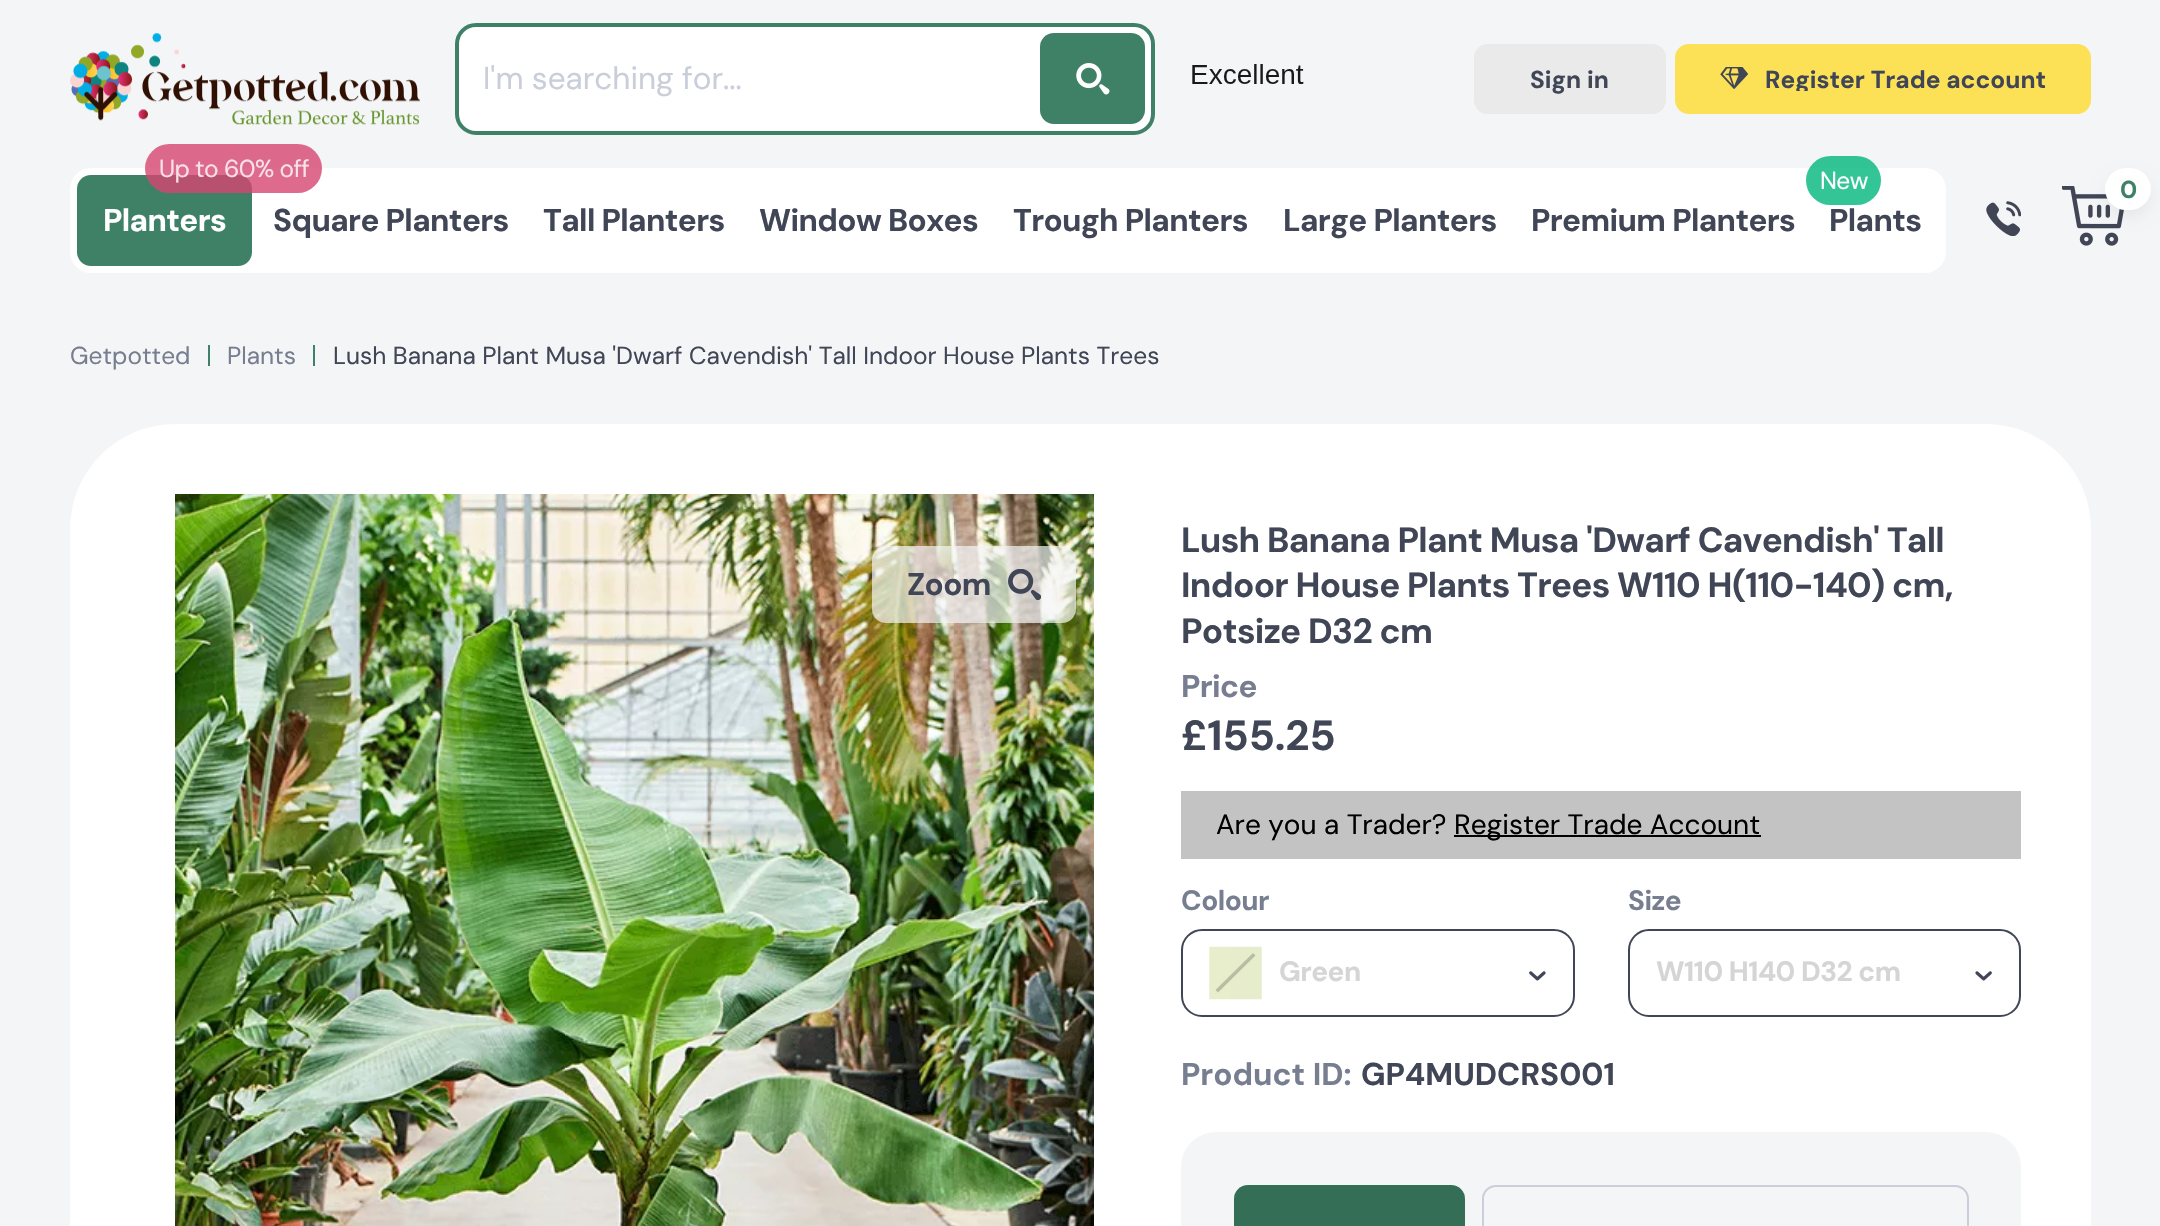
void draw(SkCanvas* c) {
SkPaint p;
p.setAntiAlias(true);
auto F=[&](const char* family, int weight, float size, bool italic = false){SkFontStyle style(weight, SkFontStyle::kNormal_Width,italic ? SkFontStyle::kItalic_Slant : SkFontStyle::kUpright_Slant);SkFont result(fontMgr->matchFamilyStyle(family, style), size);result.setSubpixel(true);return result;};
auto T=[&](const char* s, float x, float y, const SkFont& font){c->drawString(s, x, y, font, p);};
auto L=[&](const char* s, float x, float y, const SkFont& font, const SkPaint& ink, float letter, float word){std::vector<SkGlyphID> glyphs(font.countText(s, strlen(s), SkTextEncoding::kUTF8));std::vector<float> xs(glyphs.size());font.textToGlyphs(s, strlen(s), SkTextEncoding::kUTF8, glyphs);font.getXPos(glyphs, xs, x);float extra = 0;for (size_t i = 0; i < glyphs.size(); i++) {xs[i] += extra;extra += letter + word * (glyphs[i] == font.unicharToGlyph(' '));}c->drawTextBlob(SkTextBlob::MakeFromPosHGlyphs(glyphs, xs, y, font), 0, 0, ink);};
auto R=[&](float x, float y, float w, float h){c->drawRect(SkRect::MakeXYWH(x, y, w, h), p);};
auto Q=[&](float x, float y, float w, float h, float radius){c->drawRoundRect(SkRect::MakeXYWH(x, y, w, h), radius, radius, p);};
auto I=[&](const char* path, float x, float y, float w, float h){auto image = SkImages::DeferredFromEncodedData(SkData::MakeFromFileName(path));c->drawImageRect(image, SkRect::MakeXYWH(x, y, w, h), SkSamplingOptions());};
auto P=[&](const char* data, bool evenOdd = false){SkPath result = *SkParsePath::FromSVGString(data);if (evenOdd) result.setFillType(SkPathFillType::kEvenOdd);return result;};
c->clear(0xfff4f5f6);
I("1.png",70,33,350,92);
p.setColor(0xffffffff);
c->drawRoundRect(SkRect::MakeXYWH(457,25,696,108),19,19,p);
p.setStroke(true);
p.setStrokeWidth(4);
p.setColor(0xff3f8167);
c->drawRoundRect(SkRect::MakeXYWH(457,25,696,108),19,19,p);
auto f1 = F("DM Sans",400,31.5);
p.setStroke(false);
p.setColor(0xffc9ceda);
T("I'm searching for...",483,89,f1);
p.setColor(0xff3f8167);
Q(1040,33,105,91,14);
I("2.png",1076,63,34,32);
I("3.png",1192,64,112,20);
p.setColor(0xffeaeaeb);
Q(1474,44,192,70,14);
auto f2 = F("DM Sans",700,24.5);
p.setColor(0xff404656);
T("Sign in",1530,88,f2);
p.setColor(0xfffce156);
Q(1675,44,416,70,14);
I("4.png",1720,67,28,22);
c->save();
c->clipRect(SkRect::MakeXYWH(1766,67,280,24));
p.setColor(0xff404656);
T("Register Trade account",1765,88,f2);
c->restore();
p.setColor(0xffffffff);
Q(70,168,1876,105,21);
p.setColor(0xff3f8167);
Q(77,175,175,91,14);
p.setColor(0xccd64571);
Q(145,144,177,49,24.5);
auto f3 = F("DM Sans",400,24.5);
p.setColor(0xfff7e0e7);
L("Up to 60% off",159,177,f3,p,-.6,0);
auto f4 = F("DM Sans",700,31.5);
p.setColor(0xffffffff);
L("Planters",103,231,f4,p,-.6,0);
p.setColor(0xff404656);
L("Square Planters",273,231,f4,p,-.6,0);
L("Tall Planters",543,231,f4,p,-.6,0);
L("Window Boxes",759,231,f4,p,-.6,0);
L("Trough Planters",1013,231,f4,p,-.6,0);
L("Large Planters",1283,231,f4,p,-.6,0);
p.setColor(0xcc00b67a);
Q(1806,156,75,49,24.5);
p.setColor(0xffffffff);
L("New",1820,189,f3,p,-.6,0);
p.setColor(0xff404656);
L("Premium Planters",1531,231,f4,p,-.6,0);
L("Plants",1829,231,f4,p,-.6,0);
I("5.png",2062,186,62,60);
p.setColor(0x0d000000);
p.setMaskFilter(SkMaskFilter::MakeBlur(kNormal_SkBlurStyle, 7));
c->drawRoundRect(SkRect::MakeXYWH(2105,175,46,42),21,21,p);
p.setMaskFilter(nullptr);
p.setColor(0xffffffff);
Q(2105,168,46,42,21);
p.setColor(0xff3f8167);
T("0",2120,198,f2);
I("6.png",1986,201,35,35);
p.setColor(0xff777e90);
T("Getpotted",70,364,f3);
p.setColor(0xff3f8167);
R(208,345,2,21);
p.setColor(0xff777e90);
T("Plants",227,364,f3);
p.setColor(0xff3f8167);
R(313,345,2,21);
p.setColor(0xff404656);
T("Lush Banana Plant Musa 'Dwarf Cavendish' Tall Indoor House Plants Trees",333,364,f3);
p.setColor(0xffffffff);
Q(70,424,2021,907,105);
I("7.png",175,494,919,732);
p.setColor(0xb3f4f5f6);
Q(872,546,204,77,14);
p.setColor(0xff404656);
L("Zoom",907,595,f4,p,-.6,0);
I("8.png",1008,569,33,31);
auto f5 = F("DM Sans",700,35);
L("Lush Banana Plant Musa 'Dwarf Cavendish' Tall",1181,552,f5,p,-.7,0);
L("Indoor House Plants Trees W110 H(110-140) cm,",1181,597,f5,p,-.7,0);
L("Potsize D32 cm",1181,643,f5,p,-.7,0);
p.setColor(0xff777e90);
L("Price",1181,697,f4,p,-.6,0);
auto f6 = F("DM Sans",700,42);
p.setColor(0xff404656);
T("£155.25",1181,750,f6);
p.setColor(0xffc3c3c3);
R(1181,791,840,68);
auto f7 = F("DM Sans",400,28);
p.setColor(0xff000000);
T("Are you a Trader?",1216,834,f7);
R(1454,835,307,2);
T("Register Trade Account",1454,834,f7);
auto f8 = F("DM Sans",700,28);
p.setColor(0xff777e90);
L("Colour",1181,910,f8,p,-.5,0);
p.setStroke(true);
p.setStrokeWidth(2);
p.setColor(0xff404656);
c->drawRoundRect(SkRect::MakeXYWH(1182,930,392,86),20,20,p);
I("9.png",1209,946,53,54);
p.setStroke(false);
p.setColor(0xffb9bea3);
c->drawPath(P("M1215.5 990l37.5-37l2.5 2.5l-37.5 37z"),p);
p.setColor(0xffd5d5d5);
L("Green",1279,981,f8,p,-.5,0);
I("10.png",1529,971,17,10);
p.setColor(0xff777e90);
L("Size",1628,910,f8,p,-.5,0);
p.setStroke(true);
p.setColor(0xff404656);
c->drawRoundRect(SkRect::MakeXYWH(1629,930,391,86),20,20,p);
p.setStroke(false);
p.setColor(0xffd5d5d5);
L("W110 H140 D32 cm",1656,981,f8,p,-.5,0);
I("11.png",1975,971,17,10);
p.setColor(0xff777e90);
T("Product ID:",1181,1085,f4);
p.setColor(0xff404656);
T("GP4MUDCRS001",1361,1085,f4);
p.setColor(0xfff4f5f6);
Q(1181,1132,840,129,35);
p.setColor(0xff346e57);
Q(1234,1185,231,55,14);
p.setStroke(true);
p.setColor(0xffc9ceda);
c->drawRoundRect(SkRect::MakeXYWH(1483,1186,485,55),13,13,p);
}
